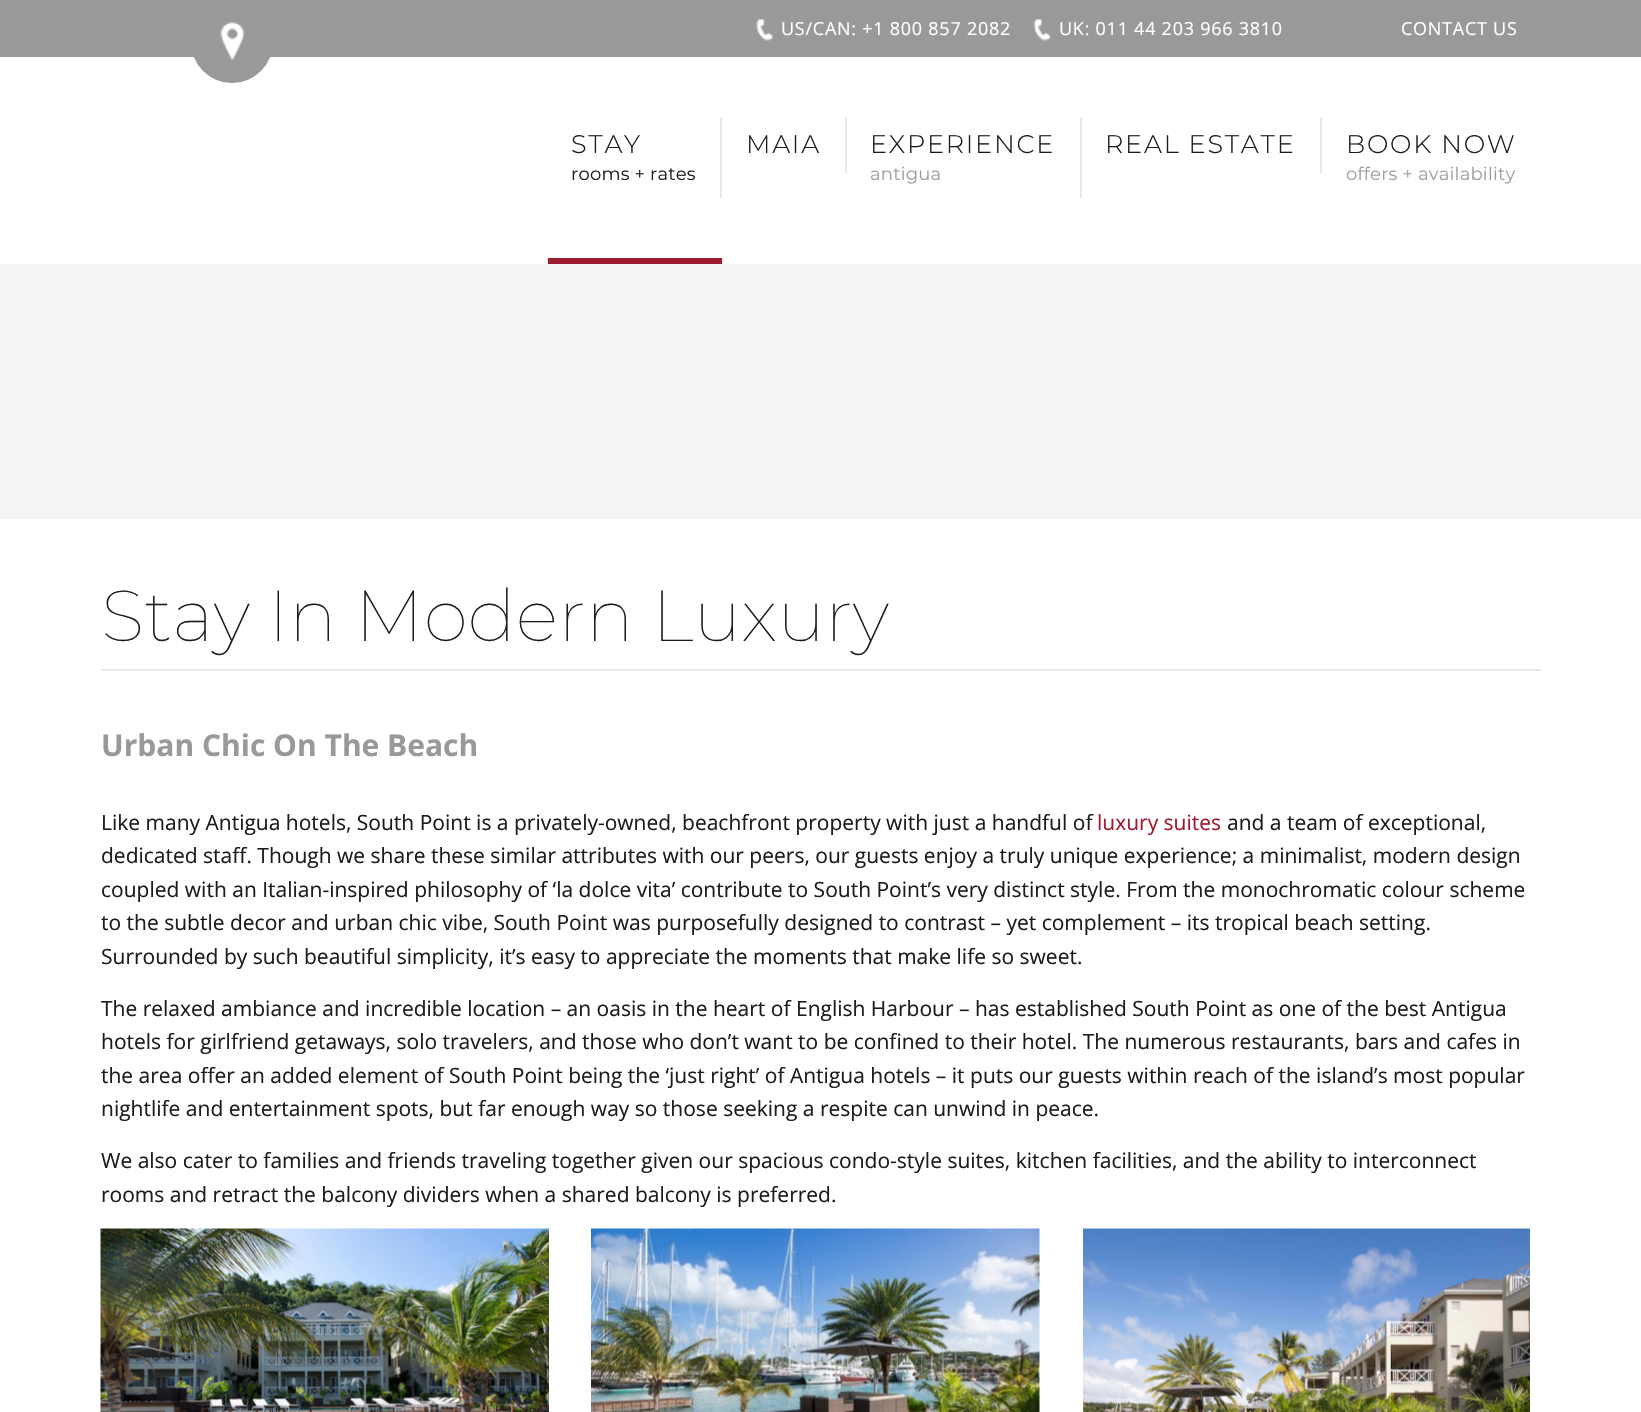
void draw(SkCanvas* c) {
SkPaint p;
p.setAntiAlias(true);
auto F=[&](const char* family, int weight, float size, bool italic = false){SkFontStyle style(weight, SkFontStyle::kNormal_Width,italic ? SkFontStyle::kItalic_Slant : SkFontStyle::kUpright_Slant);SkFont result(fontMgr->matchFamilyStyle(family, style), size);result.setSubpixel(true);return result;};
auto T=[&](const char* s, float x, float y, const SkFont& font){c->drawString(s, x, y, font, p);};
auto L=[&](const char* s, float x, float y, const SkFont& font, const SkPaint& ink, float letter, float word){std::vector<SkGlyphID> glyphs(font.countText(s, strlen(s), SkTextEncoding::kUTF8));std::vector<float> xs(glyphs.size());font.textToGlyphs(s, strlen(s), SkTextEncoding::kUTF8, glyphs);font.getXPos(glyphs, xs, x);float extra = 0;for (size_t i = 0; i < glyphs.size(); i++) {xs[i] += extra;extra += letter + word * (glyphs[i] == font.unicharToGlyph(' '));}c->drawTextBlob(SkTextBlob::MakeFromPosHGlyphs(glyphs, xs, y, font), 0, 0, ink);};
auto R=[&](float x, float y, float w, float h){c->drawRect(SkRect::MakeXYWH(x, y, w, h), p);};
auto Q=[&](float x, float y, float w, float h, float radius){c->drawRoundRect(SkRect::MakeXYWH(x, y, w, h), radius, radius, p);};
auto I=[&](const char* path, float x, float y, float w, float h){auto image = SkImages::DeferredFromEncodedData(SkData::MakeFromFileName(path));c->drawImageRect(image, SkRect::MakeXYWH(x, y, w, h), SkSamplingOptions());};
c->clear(0xffffffff);
p.setColor(0xff999999);
R(0,0,1641,57);
Q(191,0,82,83,41);
I("1.png",220,22,25,39);
I("2.png",756,19,17,22);
auto f1 = F("Open Sans",400,18);
p.setColor(0xffffffff);
L("US/CAN: +1 800 857 2082",781,35,f1,p,.75,0);
I("3.png",1033,19,17,22);
L("UK: 011 44 203 966 3810",1059,35,f1,p,.75,0);
L("CONTACT US",1401,35,f1,p,.75,0);
p.setColor(0xff9e1b30);
R(548,258,174,6);
p.setColor(0xffe8e8e8);
R(720,117,2,81);
auto f2 = F("Montserrat",300,25.5);
p.setColor(0xff1c1c1c);
L("STAY",571,153,f2,p,1.75,0);
auto f3 = F("Montserrat",400,18);
L("rooms + rates",571,180,f3,p,.2,0);
p.setColor(0xffe8e8e8);
R(845,117,2,56);
p.setColor(0xff1c1c1c);
L("MAIA",746,153,f2,p,1.75,0);
p.setColor(0xffe8e8e8);
R(1080,117,2,81);
p.setColor(0xff1c1c1c);
L("EXPERIENCE",870,153,f2,p,1.75,0);
p.setColor(0xffa09d9d);
L("antigua",870,180,f3,p,.2,0);
p.setColor(0xffe8e8e8);
R(1320,117,2,56);
p.setColor(0xff1c1c1c);
L("REAL ESTATE",1105,153,f2,p,1.75,0);
L("BOOK NOW",1346,153,f2,p,1.75,0);
p.setColor(0xffa09d9d);
L("offers + availability",1346,180,f3,p,.2,0);
p.setColor(0xfff4f4f4);
R(0,264,1641,255);
p.setColor(0xffe8e8e8);
R(101,669,1440,2);
auto f4 = F("Montserrat",100,72);
p.setColor(0xff1c1c1c);
T("Stay In Modern Luxury",101,641,f4);
auto f5 = F("Open Sans",700,30);
p.setColor(0xff999999);
T("Urban Chic On The Beach",101,756,f5);
auto f6 = F("Open Sans",400,21);
p.setColor(0xff1c1c1c);
T("Like many Antigua hotels, South Point is a privately-owned, beachfront property with just a handful of",101,830,f6);
p.setColor(0xff9e1b30);
T("luxury suites",1097,830,f6);
p.setColor(0xff1c1c1c);
T("and a team of exceptional,",1227,830,f6);
T("dedicated staff. Though we share these similar attributes with our peers, our guests enjoy a truly unique experience; a minimalist, modern design",101,863,f6);
T("coupled with an Italian-inspired philosophy of ‘la dolce vita’ contribute to South Point’s very distinct style. From the monochromatic colour scheme",101,897,f6);
T("to the subtle decor and urban chic vibe, South Point was purposefully designed to contrast – yet complement – its tropical beach setting.",101,930,f6);
T("Surrounded by such beautiful simplicity, it’s easy to appreciate the moments that make life so sweet.",101,964,f6);
T("The relaxed ambiance and incredible location – an oasis in the heart of English Harbour – has established South Point as one of the best Antigua",101,1016,f6);
T("hotels for girlfriend getaways, solo travelers, and those who don’t want to be confined to their hotel. The numerous restaurants, bars and cafes in",101,1049,f6);
T("the area offer an added element of South Point being the ‘just right’ of Antigua hotels – it puts our guests within reach of the island’s most popular",101,1083,f6);
T("nightlife and entertainment spots, but far enough way so those seeking a respite can unwind in peace.",101,1116,f6);
T("We also cater to families and friends traveling together given our spacious condo-style suites, kitchen facilities, and the ability to interconnect",101,1168,f6);
T("rooms and retract the balcony dividers when a shared balcony is preferred.",101,1202,f6);
I("4.png",100,1228,449,184);
I("5.png",591,1228,449,184);
I("6.png",1083,1228,447,184);
}
